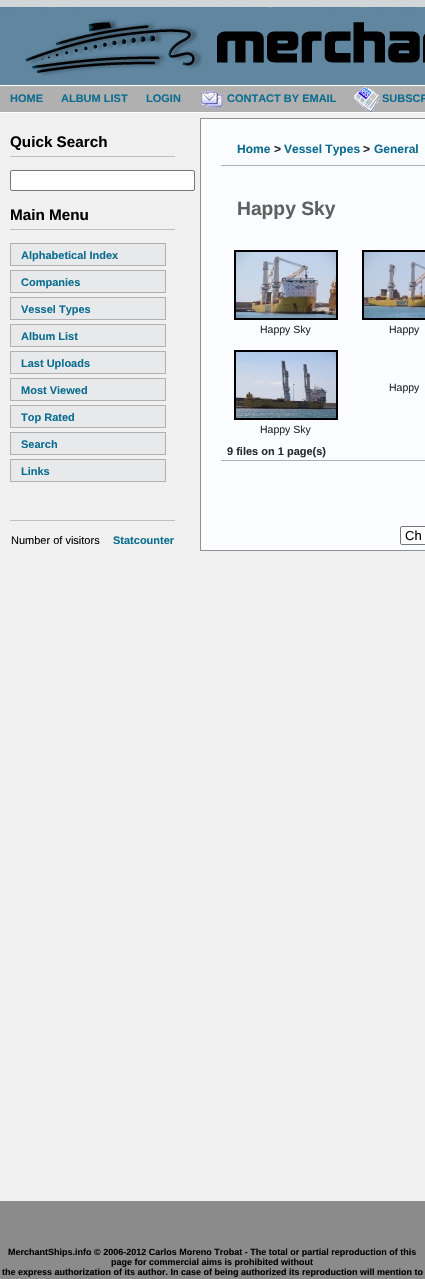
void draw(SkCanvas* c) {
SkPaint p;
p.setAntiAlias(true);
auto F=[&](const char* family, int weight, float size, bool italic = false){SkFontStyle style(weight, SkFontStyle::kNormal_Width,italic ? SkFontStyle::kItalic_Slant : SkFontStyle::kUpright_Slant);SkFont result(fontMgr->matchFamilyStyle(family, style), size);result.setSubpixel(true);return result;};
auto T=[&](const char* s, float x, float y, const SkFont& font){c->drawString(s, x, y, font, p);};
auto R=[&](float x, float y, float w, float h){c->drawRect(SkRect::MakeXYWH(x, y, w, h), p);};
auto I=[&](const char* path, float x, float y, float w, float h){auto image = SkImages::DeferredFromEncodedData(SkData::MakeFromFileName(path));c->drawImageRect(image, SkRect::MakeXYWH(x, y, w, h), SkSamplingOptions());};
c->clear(0xff8b8b8b);
p.setColor(0xfff0f0f0);
R(0,113,425,1088);
p.setColor(0xffd2d6d9);
R(0,0,425,7);
I("1.png",0,7,425,78);
p.setColor(0xffb0b0b0);
R(0,86,425,26);
p.setColor(0xffffffff);
R(0,85,425,1);
R(0,112,425,1);
auto f1 = F("Liberation Sans",700,11);
p.setColor(0xff0b6d90);
T("HOME",10,102,f1);
T("ALBUM LIST",61,102,f1);
T("LOGIN",146,102,f1);
I("2.png",201,91,22,16);
T("CONTACT BY EMAIL",227,102,f1);
I("3.png",354,87,25,25);
T("SUBSCR",382,102,f1);
p.setColor(0xffbebfc3);
R(10,156,165,1);
auto f2 = F("Liberation Sans",700,15.25);
p.setColor(0xff030303);
T("Quick Search",10,147,f2);
p.setColor(0xffffffff);
c->drawRoundRect(SkRect::MakeXYWH(10.5,170.5,184,20),1.5,1.5,p);
p.setStroke(true);
p.setStrokeWidth(1);
p.setColor(0xff767676);
c->drawRoundRect(SkRect::MakeXYWH(10.5,170.5,184,20),1.5,1.5,p);
p.setStroke(false);
p.setColor(0xffbebfc3);
R(10,229,165,1);
p.setColor(0xff030303);
T("Main Menu",10,220,f2);
p.setColor(0xffe8e9ea);
c->drawRect(SkRect::MakeXYWH(10.5,243.5,155,22),p);
p.setStroke(true);
p.setColor(0xffb0b0b0);
c->drawRect(SkRect::MakeXYWH(10.5,243.5,155,22),p);
p.setStroke(false);
p.setColor(0xff0b6d90);
T("Alphabetical Index",21,259,f1);
p.setColor(0xffe8e9ea);
c->drawRect(SkRect::MakeXYWH(10.5,270.5,155,22),p);
p.setStroke(true);
p.setColor(0xffb0b0b0);
c->drawRect(SkRect::MakeXYWH(10.5,270.5,155,22),p);
p.setStroke(false);
p.setColor(0xff0b6d90);
T("Companies",21,286,f1);
p.setColor(0xffe8e9ea);
c->drawRect(SkRect::MakeXYWH(10.5,297.5,155,22),p);
p.setStroke(true);
p.setColor(0xffb0b0b0);
c->drawRect(SkRect::MakeXYWH(10.5,297.5,155,22),p);
p.setStroke(false);
p.setColor(0xff0b6d90);
T("Vessel Types",21,313,f1);
p.setColor(0xffe8e9ea);
c->drawRect(SkRect::MakeXYWH(10.5,324.5,155,22),p);
p.setStroke(true);
p.setColor(0xffb0b0b0);
c->drawRect(SkRect::MakeXYWH(10.5,324.5,155,22),p);
p.setStroke(false);
p.setColor(0xff0b6d90);
T("Album List",21,340,f1);
p.setColor(0xffe8e9ea);
c->drawRect(SkRect::MakeXYWH(10.5,351.5,155,22),p);
p.setStroke(true);
p.setColor(0xffb0b0b0);
c->drawRect(SkRect::MakeXYWH(10.5,351.5,155,22),p);
p.setStroke(false);
p.setColor(0xff0b6d90);
T("Last Uploads",21,367,f1);
p.setColor(0xffe8e9ea);
c->drawRect(SkRect::MakeXYWH(10.5,378.5,155,22),p);
p.setStroke(true);
p.setColor(0xffb0b0b0);
c->drawRect(SkRect::MakeXYWH(10.5,378.5,155,22),p);
p.setStroke(false);
p.setColor(0xff0b6d90);
T("Most Viewed",21,394,f1);
p.setColor(0xffe8e9ea);
c->drawRect(SkRect::MakeXYWH(10.5,405.5,155,22),p);
p.setStroke(true);
p.setColor(0xffb0b0b0);
c->drawRect(SkRect::MakeXYWH(10.5,405.5,155,22),p);
p.setStroke(false);
p.setColor(0xff0b6d90);
T("Top Rated",21,421,f1);
p.setColor(0xffe8e9ea);
c->drawRect(SkRect::MakeXYWH(10.5,432.5,155,22),p);
p.setStroke(true);
p.setColor(0xffb0b0b0);
c->drawRect(SkRect::MakeXYWH(10.5,432.5,155,22),p);
p.setStroke(false);
p.setColor(0xff0b6d90);
T("Search",21,448,f1);
p.setColor(0xffe8e9ea);
c->drawRect(SkRect::MakeXYWH(10.5,459.5,155,22),p);
p.setStroke(true);
p.setColor(0xffb0b0b0);
c->drawRect(SkRect::MakeXYWH(10.5,459.5,155,22),p);
p.setStroke(false);
p.setColor(0xff0b6d90);
T("Links",21,475,f1);
p.setColor(0xffbebfc3);
R(10,520,165,1);
auto f3 = F("Liberation Sans",400,11);
p.setColor(0xff030303);
T("Number of visitors",11,544,f3);
p.setColor(0xff0b6d90);
T("Statcounter",113,544,f1);
p.setColor(0xfffafcff);
c->drawRect(SkRect::MakeXYWH(200.5,118.5,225,432),p);
p.setStroke(true);
p.setColor(0xff909090);
c->drawRect(SkRect::MakeXYWH(200.5,118.5,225,432),p);
p.setStroke(false);
p.setColor(0xffb0b0b0);
R(221,165,204,1);
auto f4 = F("Liberation Sans",700,12);
p.setColor(0xff0b6d90);
T("Home",237,153,f4);
p.setColor(0xff2a2a2a);
T(">",274,153,f4);
p.setColor(0xff0b6d90);
T("Vessel Types",284,153,f4);
p.setColor(0xff2a2a2a);
T(">",363,153,f4);
p.setColor(0xff0b6d90);
T("General",374,153,f4);
p.setColor(0xffb0b0b0);
R(221,460,204,1);
auto f5 = F("Liberation Sans",700,19.25);
p.setColor(0xff606060);
T("Happy Sky",237,215,f5);
p.setStroke(true);
p.setStrokeWidth(2);
p.setColor(0xff000000);
c->drawRect(SkRect::MakeXYWH(235,251,102,68),p);
I("4.png",236,252,100,66);
auto f6 = F("Liberation Sans",400,10.5);
p.setStroke(false);
p.setColor(0xff2a2a2a);
T("Happy Sky",260,333,f6);
p.setStroke(true);
p.setColor(0xff000000);
c->drawRect(SkRect::MakeXYWH(363,251,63,68),p);
I("5.png",364,252,61,66);
p.setStroke(false);
p.setColor(0xff2a2a2a);
T("Happy",389,333,f6);
T("Happy",389,391,f6);
p.setStroke(true);
p.setColor(0xff000000);
c->drawRect(SkRect::MakeXYWH(235,351,102,68),p);
I("6.png",236,352,100,66);
p.setStroke(false);
p.setColor(0xff2a2a2a);
T("Happy Sky",260,433,f6);
T("9 files on 1 page(s)",227,455,f1);
p.setColor(0xffffffff);
c->drawRoundRect(SkRect::MakeXYWH(400.5,526.5,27,18),1.5,1.5,p);
p.setStroke(true);
p.setStrokeWidth(1);
p.setColor(0xff767676);
c->drawRoundRect(SkRect::MakeXYWH(400.5,526.5,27,18),1.5,1.5,p);
auto f7 = F("Liberation Sans",400,13);
p.setStroke(false);
p.setColor(0xff030303);
T("Ch",405,540,f7);
auto f8 = F("Liberation Sans",700,9);
T("MerchantShips.info © 2006-2012 Carlos Moreno Trobat - The total or partial reproduction of this",8,1255,f8);
T("page for commercial aims is prohibited without",111,1265,f8);
T("the express authorization of its author. In case of being authorized its reproduction will mention to",2,1275,f8);
}
